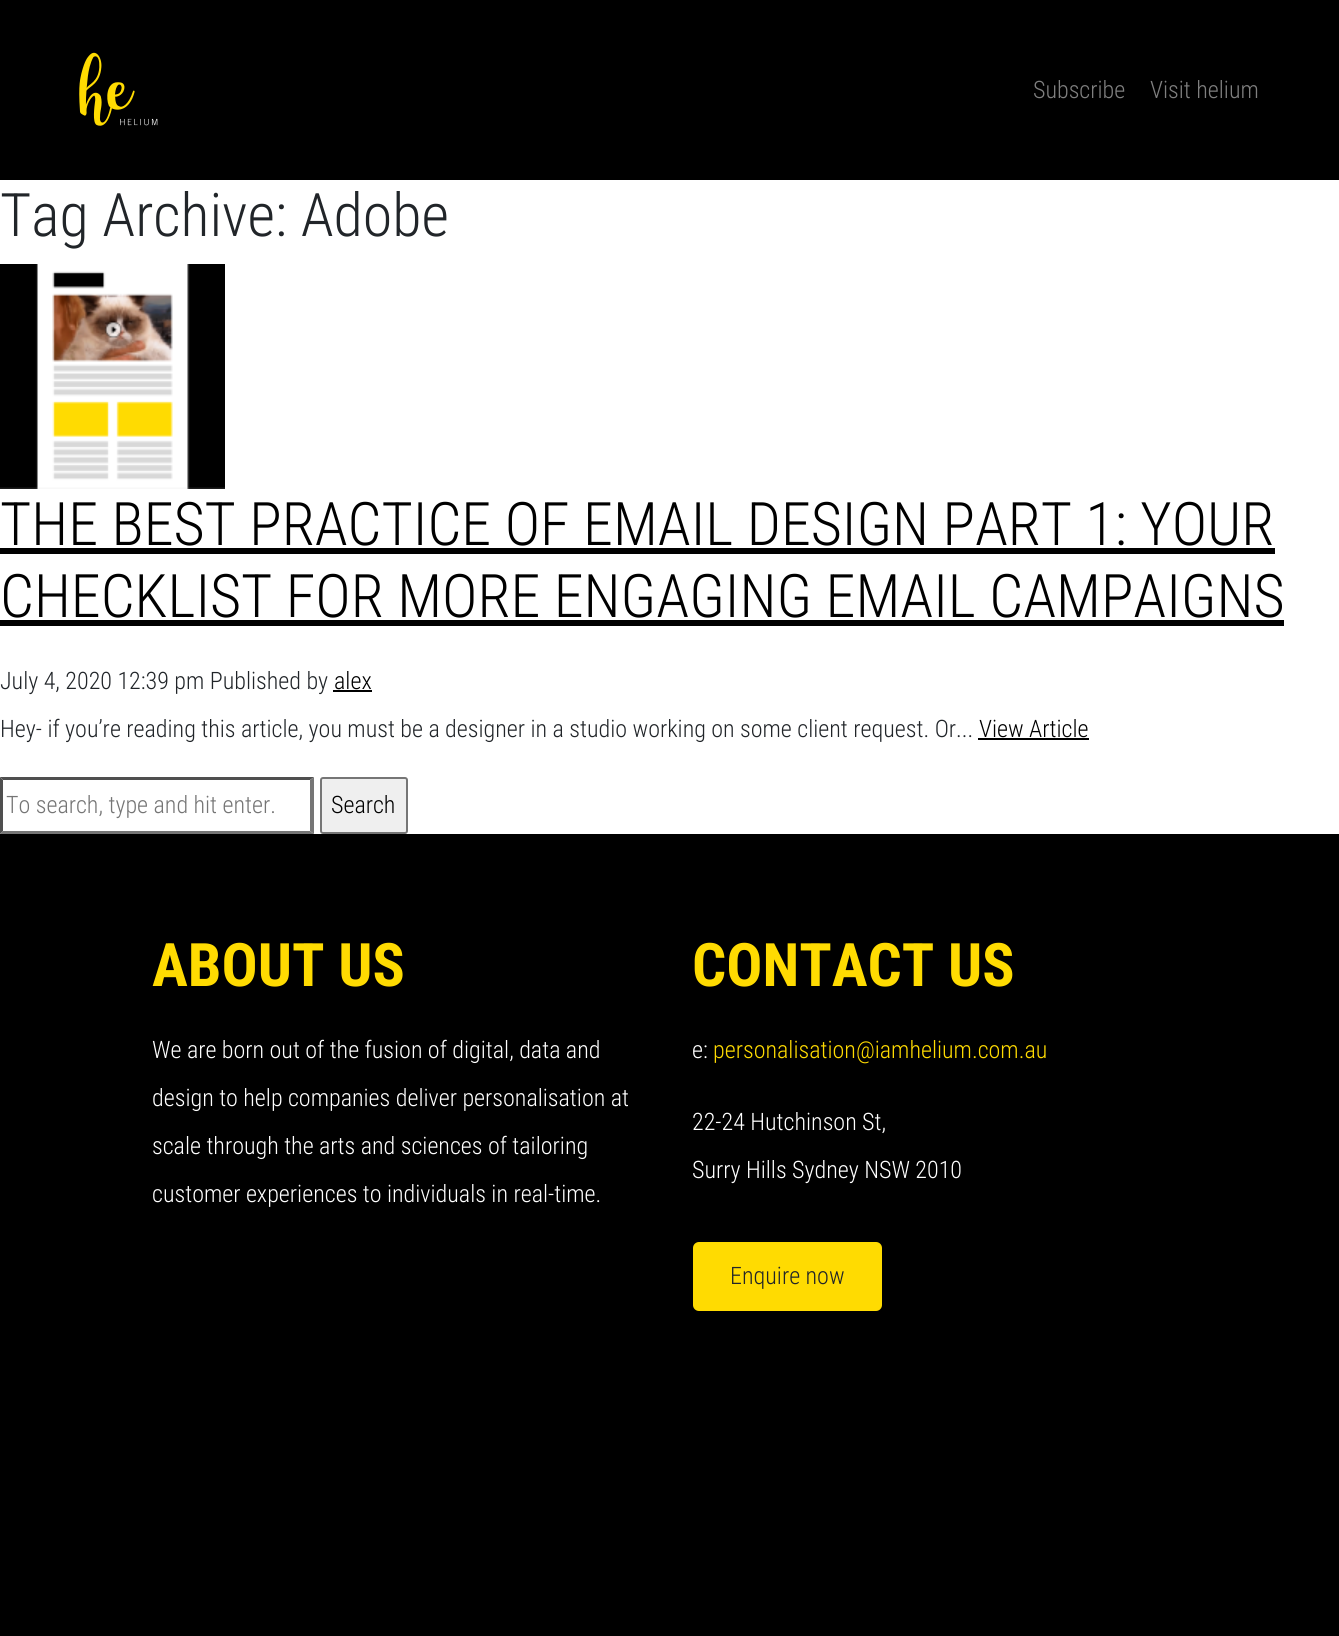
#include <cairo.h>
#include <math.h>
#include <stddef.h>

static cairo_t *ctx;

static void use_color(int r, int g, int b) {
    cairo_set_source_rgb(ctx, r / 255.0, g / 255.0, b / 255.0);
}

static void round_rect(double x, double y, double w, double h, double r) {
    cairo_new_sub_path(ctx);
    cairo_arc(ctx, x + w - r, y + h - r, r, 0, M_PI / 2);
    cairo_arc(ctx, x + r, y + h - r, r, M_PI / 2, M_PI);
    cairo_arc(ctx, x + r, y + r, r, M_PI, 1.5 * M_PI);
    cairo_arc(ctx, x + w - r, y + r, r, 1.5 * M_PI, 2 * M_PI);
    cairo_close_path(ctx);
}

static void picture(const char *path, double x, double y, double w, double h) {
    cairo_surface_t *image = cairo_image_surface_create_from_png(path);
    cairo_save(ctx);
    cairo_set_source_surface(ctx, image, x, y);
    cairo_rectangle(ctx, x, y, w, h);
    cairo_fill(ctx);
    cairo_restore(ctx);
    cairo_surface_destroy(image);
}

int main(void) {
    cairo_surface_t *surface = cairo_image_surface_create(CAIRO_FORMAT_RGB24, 1339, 1636);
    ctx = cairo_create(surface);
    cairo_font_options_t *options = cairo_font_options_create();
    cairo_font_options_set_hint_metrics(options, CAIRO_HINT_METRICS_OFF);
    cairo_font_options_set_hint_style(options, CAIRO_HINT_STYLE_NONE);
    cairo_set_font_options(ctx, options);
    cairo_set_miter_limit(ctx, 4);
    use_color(255, 255, 255);
    cairo_paint(ctx);
    use_color(0, 0, 0);
    cairo_rectangle(ctx, 0, 0, 1339, 180);
    cairo_fill(ctx);
    picture("img1.png", 79, 52, 79, 74);
    cairo_select_font_face(ctx, "Roboto Condensed Light", CAIRO_FONT_SLANT_NORMAL, CAIRO_FONT_WEIGHT_NORMAL);
    cairo_set_font_size(ctx, 24);
    use_color(128, 128, 128);
    cairo_move_to(ctx, 1033, 98);
    cairo_show_text(ctx, "Subscribe");
    cairo_move_to(ctx, 1150, 98);
    cairo_show_text(ctx, "Visit helium");
    cairo_set_font_size(ctx, 60);
    use_color(33, 37, 41);
    cairo_move_to(ctx, 0, 236);
    cairo_show_text(ctx, "Tag Archive: Adobe");
    picture("img2.png", 0, 264, 225, 225);
    use_color(0, 0, 0);
    cairo_move_to(ctx, 0, 545);
    cairo_show_text(ctx, "THE BEST PRACTICE OF EMAIL DESIGN PART 1: YOUR");
    cairo_rectangle(ctx, 0, 548, 1275, 6);
    cairo_fill(ctx);
    cairo_move_to(ctx, 0, 617);
    cairo_show_text(ctx, "CHECKLIST FOR MORE ENGAGING EMAIL CAMPAIGNS");
    cairo_rectangle(ctx, 0, 620, 1284, 6);
    cairo_fill(ctx);
    cairo_set_font_size(ctx, 24);
    use_color(33, 37, 41);
    cairo_move_to(ctx, 0, 689);
    cairo_show_text(ctx, "July 4, 2020 12:39 pm Published by");
    use_color(0, 0, 0);
    cairo_move_to(ctx, 334, 689);
    cairo_show_text(ctx, "alex");
    cairo_rectangle(ctx, 333, 690, 39, 2);
    cairo_fill(ctx);
    use_color(33, 37, 41);
    cairo_move_to(ctx, 0, 737);
    cairo_show_text(ctx, "Hey- if you’re reading this article, you must be a designer in a studio working on some client request. Or...");
    use_color(0, 0, 0);
    cairo_move_to(ctx, 979, 737);
    cairo_show_text(ctx, "View Article");
    cairo_rectangle(ctx, 978, 738, 111, 2);
    cairo_fill(ctx);
    use_color(79, 79, 79);
    cairo_new_path(ctx);
    cairo_move_to(ctx, 0, 777);
    cairo_line_to(ctx, 314, 777);
    cairo_line_to(ctx, 310, 780);
    cairo_line_to(ctx, 3, 780);
    cairo_close_path(ctx);
    cairo_fill(ctx);
    use_color(118, 118, 118);
    cairo_new_path(ctx);
    cairo_move_to(ctx, 314, 777);
    cairo_line_to(ctx, 314, 834);
    cairo_line_to(ctx, 310, 831);
    cairo_line_to(ctx, 310, 780);
    cairo_close_path(ctx);
    cairo_fill(ctx);
    cairo_new_path(ctx);
    cairo_move_to(ctx, 314, 834);
    cairo_line_to(ctx, 0, 834);
    cairo_line_to(ctx, 3, 831);
    cairo_line_to(ctx, 310, 831);
    cairo_close_path(ctx);
    cairo_fill(ctx);
    use_color(79, 79, 79);
    cairo_new_path(ctx);
    cairo_move_to(ctx, 0, 834);
    cairo_line_to(ctx, 0, 777);
    cairo_line_to(ctx, 3, 780);
    cairo_line_to(ctx, 3, 831);
    cairo_close_path(ctx);
    cairo_fill(ctx);
    use_color(117, 117, 117);
    cairo_move_to(ctx, 6, 813);
    cairo_show_text(ctx, "To search, type and hit enter.");
    use_color(239, 239, 239);
    round_rect(321, 778, 86, 55, 2);
    cairo_fill_preserve(ctx);
    use_color(118, 118, 118);
    cairo_stroke(ctx);
    use_color(0, 0, 0);
    cairo_move_to(ctx, 331, 813);
    cairo_show_text(ctx, "Search");
    cairo_rectangle(ctx, 0, 834, 1339, 802);
    cairo_fill(ctx);
    cairo_select_font_face(ctx, "Roboto Condensed", CAIRO_FONT_SLANT_NORMAL, CAIRO_FONT_WEIGHT_BOLD);
    cairo_set_font_size(ctx, 60);
    use_color(255, 219, 1);
    cairo_move_to(ctx, 152, 986);
    cairo_show_text(ctx, "ABOUT US");
    cairo_select_font_face(ctx, "Roboto Condensed Light", CAIRO_FONT_SLANT_NORMAL, CAIRO_FONT_WEIGHT_NORMAL);
    cairo_set_font_size(ctx, 24);
    use_color(255, 255, 255);
    cairo_move_to(ctx, 152, 1058);
    cairo_show_text(ctx, "We are born out of the fusion of digital, data and");
    cairo_move_to(ctx, 152, 1106);
    cairo_show_text(ctx, "design to help companies deliver personalisation at");
    cairo_move_to(ctx, 152, 1154);
    cairo_show_text(ctx, "scale through the arts and sciences of tailoring");
    cairo_move_to(ctx, 152, 1202);
    cairo_show_text(ctx, "customer experiences to individuals in real-time.");
    cairo_select_font_face(ctx, "Roboto Condensed", CAIRO_FONT_SLANT_NORMAL, CAIRO_FONT_WEIGHT_BOLD);
    cairo_set_font_size(ctx, 60);
    use_color(255, 219, 1);
    cairo_move_to(ctx, 692, 986);
    cairo_show_text(ctx, "CONTACT US");
    cairo_select_font_face(ctx, "Roboto Condensed Light", CAIRO_FONT_SLANT_NORMAL, CAIRO_FONT_WEIGHT_NORMAL);
    cairo_set_font_size(ctx, 24);
    use_color(255, 255, 255);
    cairo_move_to(ctx, 692, 1058);
    cairo_show_text(ctx, "e:");
    use_color(255, 219, 1);
    cairo_move_to(ctx, 713, 1058);
    cairo_show_text(ctx, "personalisation@iamhelium.com.au");
    use_color(255, 255, 255);
    cairo_move_to(ctx, 692, 1130);
    cairo_show_text(ctx, "22-24 Hutchinson St,");
    cairo_move_to(ctx, 692, 1178);
    cairo_show_text(ctx, "Surry Hills Sydney NSW 2010");
    use_color(255, 219, 1);
    round_rect(694, 1243, 187, 67, 5);
    cairo_fill_preserve(ctx);
    cairo_stroke(ctx);
    use_color(33, 37, 41);
    cairo_move_to(ctx, 730, 1284);
    cairo_show_text(ctx, "Enquire now");
    cairo_surface_write_to_png(surface, "result.png");
    cairo_font_options_destroy(options);
    cairo_destroy(ctx);
    cairo_surface_destroy(surface);
    return 0;
}
